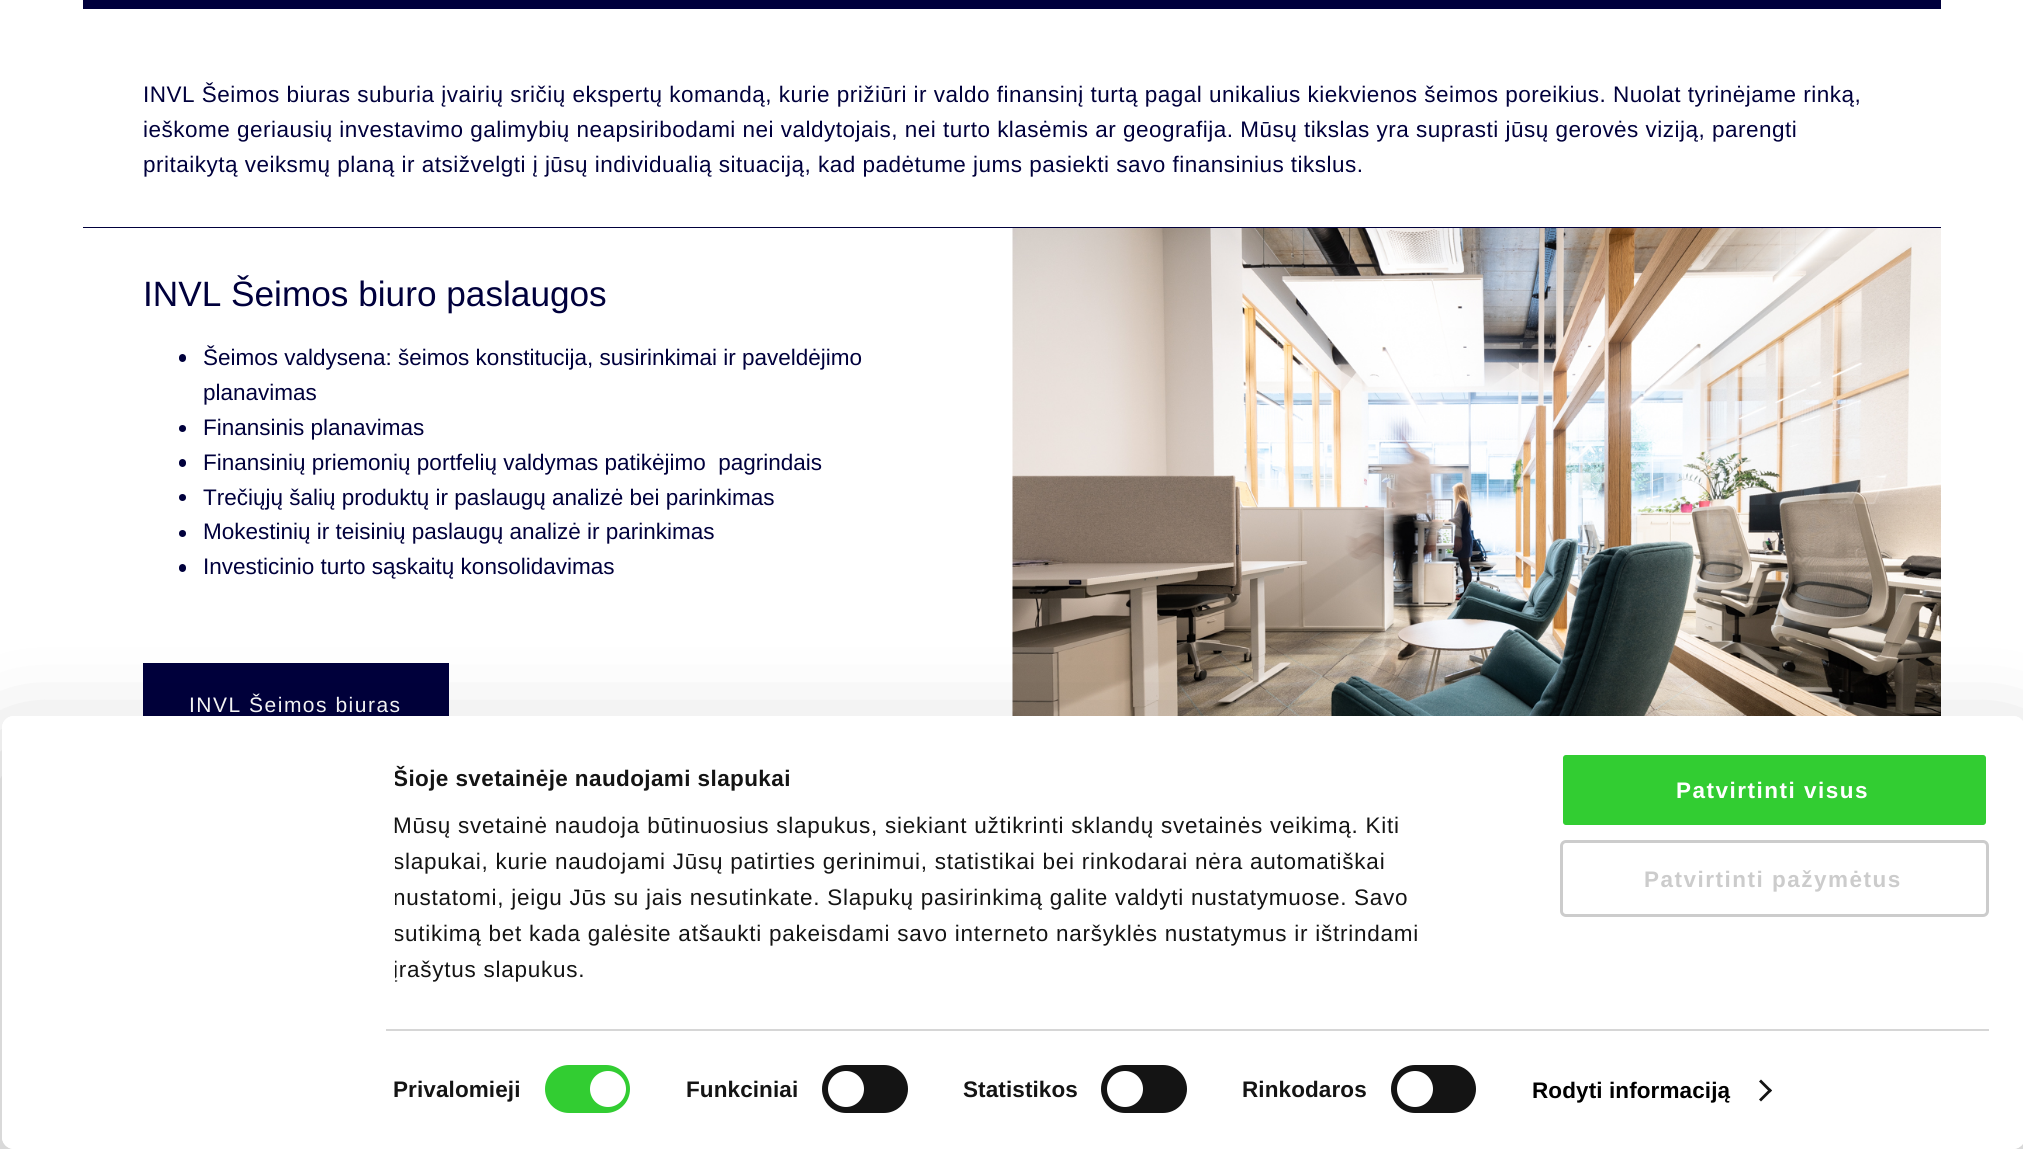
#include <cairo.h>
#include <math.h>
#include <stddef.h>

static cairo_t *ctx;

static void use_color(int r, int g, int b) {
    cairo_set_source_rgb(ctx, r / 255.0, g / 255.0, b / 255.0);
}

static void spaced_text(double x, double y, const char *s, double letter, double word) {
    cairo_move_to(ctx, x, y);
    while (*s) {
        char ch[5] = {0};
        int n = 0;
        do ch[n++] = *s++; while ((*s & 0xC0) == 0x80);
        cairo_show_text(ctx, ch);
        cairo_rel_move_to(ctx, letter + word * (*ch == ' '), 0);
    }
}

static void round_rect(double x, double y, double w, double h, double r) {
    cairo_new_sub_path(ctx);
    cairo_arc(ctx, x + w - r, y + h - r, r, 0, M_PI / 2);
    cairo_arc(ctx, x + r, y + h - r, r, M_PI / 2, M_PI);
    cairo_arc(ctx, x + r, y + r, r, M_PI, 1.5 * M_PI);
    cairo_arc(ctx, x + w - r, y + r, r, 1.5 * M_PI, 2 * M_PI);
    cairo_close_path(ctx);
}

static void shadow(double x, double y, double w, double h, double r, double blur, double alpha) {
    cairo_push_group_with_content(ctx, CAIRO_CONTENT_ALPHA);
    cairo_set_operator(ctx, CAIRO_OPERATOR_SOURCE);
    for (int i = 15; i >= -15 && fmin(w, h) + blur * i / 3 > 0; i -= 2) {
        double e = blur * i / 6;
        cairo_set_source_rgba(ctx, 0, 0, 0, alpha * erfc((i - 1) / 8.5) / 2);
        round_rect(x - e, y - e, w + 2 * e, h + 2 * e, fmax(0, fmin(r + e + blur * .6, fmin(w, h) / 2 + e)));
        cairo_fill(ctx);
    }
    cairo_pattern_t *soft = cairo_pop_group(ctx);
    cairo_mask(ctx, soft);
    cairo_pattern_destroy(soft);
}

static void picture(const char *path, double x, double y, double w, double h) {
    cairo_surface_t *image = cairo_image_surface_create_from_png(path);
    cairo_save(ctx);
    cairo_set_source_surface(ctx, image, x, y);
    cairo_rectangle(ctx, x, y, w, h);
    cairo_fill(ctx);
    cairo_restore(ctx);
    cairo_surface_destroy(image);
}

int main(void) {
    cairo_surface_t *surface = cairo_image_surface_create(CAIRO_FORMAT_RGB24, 2023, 1149);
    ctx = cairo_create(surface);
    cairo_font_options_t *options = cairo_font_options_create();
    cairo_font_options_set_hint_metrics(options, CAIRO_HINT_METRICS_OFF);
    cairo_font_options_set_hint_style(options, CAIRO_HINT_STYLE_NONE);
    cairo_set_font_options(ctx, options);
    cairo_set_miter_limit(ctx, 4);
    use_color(255, 255, 255);
    cairo_paint(ctx);
    use_color(0, 0, 60);
    cairo_rectangle(ctx, 83, 0, 1858, 9);
    cairo_fill(ctx);
    cairo_rectangle(ctx, 83, 227, 1858, 1);
    cairo_fill(ctx);
    cairo_select_font_face(ctx, "Liberation Sans", CAIRO_FONT_SLANT_NORMAL, CAIRO_FONT_WEIGHT_NORMAL);
    cairo_set_font_size(ctx, 22.5);
    spaced_text(143, 102, "INVL Šeimos biuras suburia įvairių sričių ekspertų komandą, kurie prižiūri ir valdo finansinį turtą pagal unikalius kiekvienos šeimos poreikius. Nuolat tyrinėjame rinką,", 0.49, 0);
    spaced_text(143, 137, "ieškome geriausių investavimo galimybių neapsiribodami nei valdytojais, nei turto klasėmis ar geografija. Mūsų tikslas yra suprasti jūsų gerovės viziją, parengti", 0.49, 0);
    spaced_text(143, 172, "pritaikytą veiksmų planą ir atsižvelgti į jūsų individualią situaciją, kad padėtume jums pasiekti savo finansinius tikslus.", 0.49, 0);
    cairo_set_font_size(ctx, 35.2);
    cairo_move_to(ctx, 143, 306);
    cairo_show_text(ctx, "INVL Šeimos biuro paslaugos");
    round_rect(179, 354, 7, 8, 3.5);
    cairo_fill(ctx);
    cairo_set_font_size(ctx, 22.5);
    cairo_move_to(ctx, 203, 365);
    cairo_show_text(ctx, "Šeimos valdysena: šeimos konstitucija, susirinkimai ir paveldėjimo");
    cairo_move_to(ctx, 203, 400);
    cairo_show_text(ctx, "planavimas");
    cairo_new_path(ctx);
    cairo_arc(ctx, 182.5, 428.5, 3.5, 0, 2 * M_PI);
    cairo_fill(ctx);
    cairo_move_to(ctx, 203, 435);
    cairo_show_text(ctx, "Finansinis planavimas");
    round_rect(179, 459, 7, 8, 3.5);
    cairo_fill(ctx);
    cairo_move_to(ctx, 203, 470);
    cairo_show_text(ctx, "Finansinių priemonių portfelių valdymas patikėjimo  pagrindais");
    cairo_new_path(ctx);
    cairo_arc(ctx, 182.5, 497.5, 3.5, 0, 2 * M_PI);
    cairo_fill(ctx);
    cairo_move_to(ctx, 203, 505);
    cairo_show_text(ctx, "Trečiųjų šalių produktų ir paslaugų analizė bei parinkimas");
    cairo_new_path(ctx);
    cairo_arc(ctx, 182.5, 533.5, 3.5, 0, 2 * M_PI);
    cairo_fill(ctx);
    cairo_move_to(ctx, 203, 539);
    cairo_show_text(ctx, "Mokestinių ir teisinių paslaugų analizė ir parinkimas");
    round_rect(179, 564, 7, 8, 3.5);
    cairo_fill(ctx);
    cairo_move_to(ctx, 203, 574);
    cairo_show_text(ctx, "Investicinio turto sąskaitų konsolidavimas");
    cairo_rectangle(ctx, 143, 663, 306, 53);
    cairo_fill(ctx);
    cairo_set_font_size(ctx, 21);
    use_color(255, 255, 255);
    spaced_text(189, 712, "INVL Šeimos biuras", 1.5, 0);
    picture("img1.png", 1012, 228, 929, 488);
    cairo_save(ctx);
    cairo_set_fill_rule(ctx, CAIRO_FILL_RULE_EVEN_ODD);
    cairo_new_path(ctx);
    cairo_move_to(ctx, 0, 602);
    cairo_line_to(ctx, 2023, 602);
    cairo_line_to(ctx, 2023, 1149);
    cairo_line_to(ctx, 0, 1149);
    cairo_close_path(ctx);
    cairo_move_to(ctx, 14, 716);
    cairo_line_to(ctx, 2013, 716);
    cairo_curve_to(ctx, 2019.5, 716, 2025, 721.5, 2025, 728);
    cairo_line_to(ctx, 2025, 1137);
    cairo_curve_to(ctx, 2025, 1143.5, 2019.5, 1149, 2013, 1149);
    cairo_line_to(ctx, 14, 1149);
    cairo_curve_to(ctx, 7.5, 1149, 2, 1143.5, 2, 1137);
    cairo_line_to(ctx, 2, 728);
    cairo_curve_to(ctx, 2, 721.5, 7.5, 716, 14, 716);
    cairo_close_path(ctx);
    cairo_clip(ctx);
    use_color(0, 0, 0);
    shadow(2, 761, 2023, 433, 12, 52.5, 0.3);
    cairo_restore(ctx);
    round_rect(2, 716, 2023, 433, 12);
    cairo_fill(ctx);
    cairo_save(ctx);
    cairo_rectangle(ctx, 395, 761, 1122, 226);
    cairo_clip(ctx);
    cairo_select_font_face(ctx, "Liberation Sans", CAIRO_FONT_SLANT_NORMAL, CAIRO_FONT_WEIGHT_BOLD);
    cairo_set_font_size(ctx, 22.5);
    use_color(20, 20, 20);
    spaced_text(393, 786, "Šioje svetainėje naudojami slapukai", 0.4, 0);
    cairo_restore(ctx);
    cairo_set_font_size(ctx, 22.5);
    use_color(20, 20, 20);
    spaced_text(393, 833, "Mūsų svetainė naudoja būtinuosius slapukus, siekiant užtikrinti sklandų svetainės veikimą. Kiti", 0.75, 0);
    cairo_save(ctx);
    cairo_rectangle(ctx, 395, 761, 1122, 226);
    cairo_clip(ctx);
    spaced_text(393, 869, "slapukai, kurie naudojami Jūsų patirties gerinimui, statistikai bei rinkodarai nėra automatiškai", 0.75, 0);
    spaced_text(393, 905, "nustatomi, jeigu Jūs su jais nesutinkate. Slapukų pasirinkimą galite valdyti nustatymuose.", 0.75, 0);
    cairo_restore(ctx);
    spaced_text(1354, 905, "Savo", 0.75, 0);
    cairo_save(ctx);
    cairo_rectangle(ctx, 395, 761, 1122, 226);
    cairo_clip(ctx);
    spaced_text(393, 941, "sutikimą bet kada galėsite atšaukti pakeisdami savo interneto naršyklės nustatymus ir ištrindami", 0.75, 0);
    spaced_text(393, 977, "įrašytus slapukus.", 0.75, 0);
    cairo_restore(ctx);
    use_color(214, 214, 214);
    cairo_rectangle(ctx, 386, 1029, 1603, 2);
    cairo_fill(ctx);
    cairo_select_font_face(ctx, "Liberation Sans", CAIRO_FONT_SLANT_NORMAL, CAIRO_FONT_WEIGHT_BOLD);
    use_color(20, 20, 20);
    spaced_text(393, 1097, "Privalomieji", 0.1, 0);
    use_color(50, 205, 50);
    round_rect(545, 1065, 85, 48, 24);
    cairo_fill(ctx);
    use_color(255, 255, 255);
    cairo_arc(ctx, 608, 1089, 18, 0, 2 * M_PI);
    cairo_fill(ctx);
    use_color(20, 20, 20);
    spaced_text(686, 1097, "Funkciniai", 0.1, 0);
    round_rect(822, 1065, 86, 48, 24);
    cairo_fill(ctx);
    use_color(255, 255, 255);
    cairo_arc(ctx, 846, 1089, 18, 0, 2 * M_PI);
    cairo_fill(ctx);
    use_color(20, 20, 20);
    spaced_text(963, 1097, "Statistikos", 0.1, 0);
    round_rect(1101, 1065, 86, 48, 24);
    cairo_fill(ctx);
    use_color(255, 255, 255);
    cairo_arc(ctx, 1125, 1089, 18, 0, 2 * M_PI);
    cairo_fill(ctx);
    use_color(20, 20, 20);
    spaced_text(1242, 1097, "Rinkodaros", 0.1, 0);
    round_rect(1391, 1065, 85, 48, 24);
    cairo_fill(ctx);
    use_color(255, 255, 255);
    cairo_arc(ctx, 1415, 1089, 18, 0, 2 * M_PI);
    cairo_fill(ctx);
    use_color(0, 0, 0);
    spaced_text(1532, 1098, "Rodyti informaciją", 0.1, 0);
    use_color(20, 20, 20);
    cairo_new_path(ctx);
    cairo_move_to(ctx, 1761, 1079.5);
    cairo_line_to(ctx, 1772, 1090.5);
    cairo_line_to(ctx, 1770, 1092.5);
    cairo_line_to(ctx, 1759, 1081.5);
    cairo_close_path(ctx);
    cairo_fill(ctx);
    cairo_new_path(ctx);
    cairo_move_to(ctx, 1770, 1088.5);
    cairo_line_to(ctx, 1772, 1090.5);
    cairo_line_to(ctx, 1761, 1101.5);
    cairo_line_to(ctx, 1759, 1099.5);
    cairo_close_path(ctx);
    cairo_fill(ctx);
    use_color(50, 205, 50);
    round_rect(1561.5, 753.5, 426, 73, 4.5);
    cairo_fill_preserve(ctx);
    use_color(255, 255, 255);
    cairo_set_line_width(ctx, 3);
    cairo_stroke(ctx);
    spaced_text(1676, 798, "Patvirtinti visus", 1.5, 0);
    round_rect(1561.5, 841.5, 426, 74, 4.5);
    use_color(204, 204, 204);
    cairo_stroke(ctx);
    spaced_text(1644, 887, "Patvirtinti pažymėtus", 1.5, 0);
    cairo_surface_write_to_png(surface, "result.png");
    cairo_font_options_destroy(options);
    cairo_destroy(ctx);
    cairo_surface_destroy(surface);
    return 0;
}
